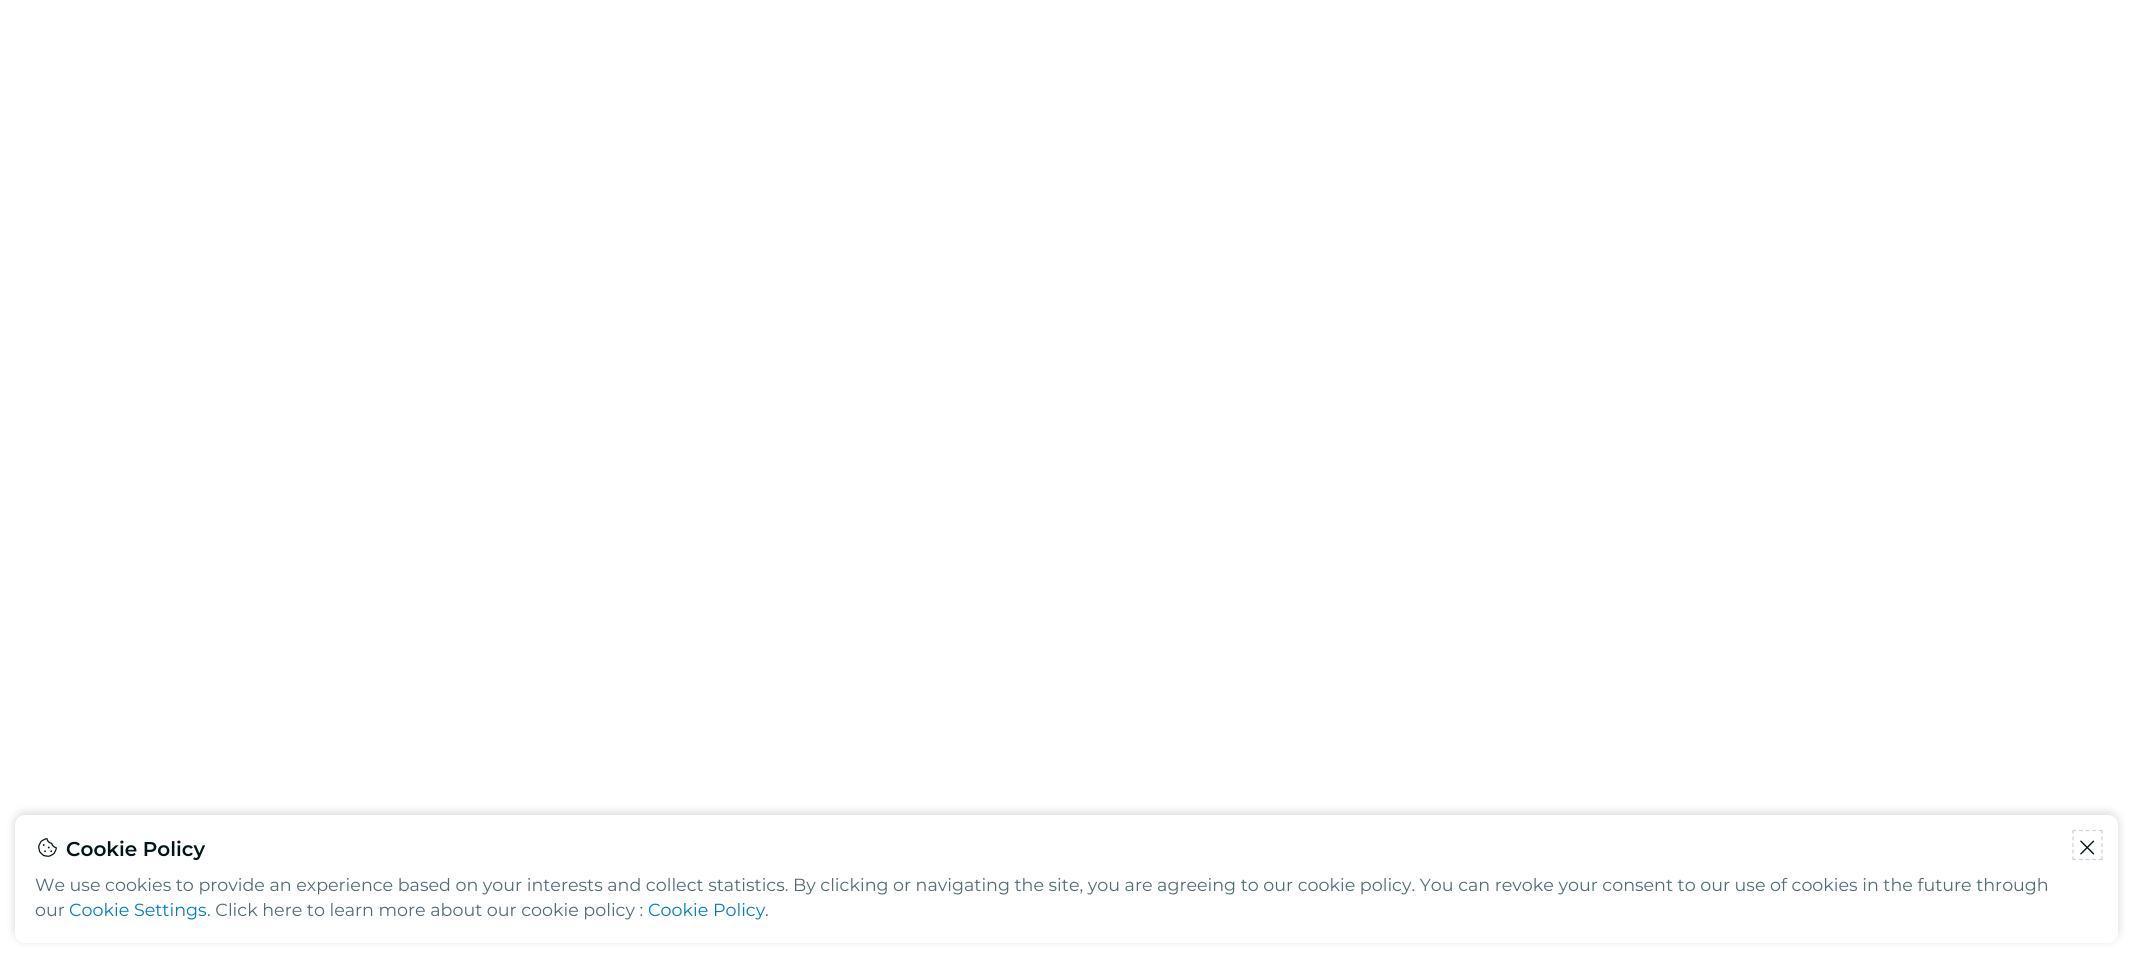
#include <cairo.h>
#include <math.h>
#include <stddef.h>

static cairo_t *ctx;

static void use_color(int r, int g, int b) {
    cairo_set_source_rgb(ctx, r / 255.0, g / 255.0, b / 255.0);
}

static void round_rect(double x, double y, double w, double h, double r) {
    cairo_new_sub_path(ctx);
    cairo_arc(ctx, x + w - r, y + h - r, r, 0, M_PI / 2);
    cairo_arc(ctx, x + r, y + h - r, r, M_PI / 2, M_PI);
    cairo_arc(ctx, x + r, y + r, r, M_PI, 1.5 * M_PI);
    cairo_arc(ctx, x + w - r, y + r, r, 1.5 * M_PI, 2 * M_PI);
    cairo_close_path(ctx);
}

static void shadow(double x, double y, double w, double h, double r, double blur, double alpha) {
    cairo_push_group_with_content(ctx, CAIRO_CONTENT_ALPHA);
    cairo_set_operator(ctx, CAIRO_OPERATOR_SOURCE);
    for (int i = 15; i >= -15 && fmin(w, h) + blur * i / 3 > 0; i -= 2) {
        double e = blur * i / 6;
        cairo_set_source_rgba(ctx, 0, 0, 0, alpha * erfc((i - 1) / 8.5) / 2);
        round_rect(x - e, y - e, w + 2 * e, h + 2 * e, fmax(0, fmin(r + e + blur * .6, fmin(w, h) / 2 + e)));
        cairo_fill(ctx);
    }
    cairo_pattern_t *soft = cairo_pop_group(ctx);
    cairo_mask(ctx, soft);
    cairo_pattern_destroy(soft);
}

static void picture(const char *path, double x, double y, double w, double h) {
    cairo_surface_t *image = cairo_image_surface_create_from_png(path);
    cairo_save(ctx);
    cairo_set_source_surface(ctx, image, x, y);
    cairo_rectangle(ctx, x, y, w, h);
    cairo_fill(ctx);
    cairo_restore(ctx);
    cairo_surface_destroy(image);
}

int main(void) {
    cairo_surface_t *surface = cairo_image_surface_create(CAIRO_FORMAT_RGB24, 2132, 957);
    ctx = cairo_create(surface);
    cairo_font_options_t *options = cairo_font_options_create();
    cairo_font_options_set_hint_metrics(options, CAIRO_HINT_METRICS_OFF);
    cairo_font_options_set_hint_style(options, CAIRO_HINT_STYLE_NONE);
    cairo_set_font_options(ctx, options);
    cairo_set_miter_limit(ctx, 4);
    use_color(255, 255, 255);
    cairo_paint(ctx);
    use_color(0, 0, 0);
    shadow(15, 813, 2103, 127, 10, 5, 0.16);
    use_color(255, 255, 255);
    round_rect(15, 815, 2103, 128, 10);
    cairo_fill(ctx);
    picture("img1.png", 38, 838, 19, 19);
    cairo_select_font_face(ctx, "Montserrat SemiBold", CAIRO_FONT_SLANT_NORMAL, CAIRO_FONT_WEIGHT_NORMAL);
    cairo_set_font_size(ctx, 20);
    use_color(3, 20, 25);
    cairo_move_to(ctx, 66, 856);
    cairo_show_text(ctx, "Cookie Policy");
    cairo_select_font_face(ctx, "Montserrat", CAIRO_FONT_SLANT_NORMAL, CAIRO_FONT_WEIGHT_NORMAL);
    cairo_set_font_size(ctx, 17.5);
    use_color(83, 107, 117);
    cairo_move_to(ctx, 35, 891);
    cairo_show_text(ctx, "We use cookies to provide an experience based on your interests and collect statistics. By clicking or navigating the site, you are agreeing to our cookie policy. You can revoke your consent to our use of cookies in the future through");
    cairo_move_to(ctx, 35, 916);
    cairo_show_text(ctx, "our");
    use_color(0, 121, 202);
    cairo_move_to(ctx, 69, 916);
    cairo_show_text(ctx, "Cookie Settings");
    use_color(83, 107, 117);
    cairo_move_to(ctx, 207, 916);
    cairo_show_text(ctx, ". Click here to learn more about our cookie policy :");
    use_color(0, 121, 202);
    cairo_move_to(ctx, 648, 916);
    cairo_show_text(ctx, "Cookie Policy");
    use_color(83, 107, 117);
    cairo_move_to(ctx, 765, 916);
    cairo_show_text(ctx, ".");
    cairo_new_path(ctx);
    cairo_move_to(ctx, 2072.5, 830.5);
    cairo_line_to(ctx, 2102.5, 830.5);
    cairo_move_to(ctx, 2102, 830);
    cairo_line_to(ctx, 2102, 860);
    cairo_move_to(ctx, 2072.5, 859.5);
    cairo_line_to(ctx, 2102.5, 859.5);
    cairo_move_to(ctx, 2073, 830);
    cairo_line_to(ctx, 2073, 860);
    use_color(204, 210, 216);
    cairo_set_line_width(ctx, 1.2);
    cairo_set_dash(ctx, (double[]){3.75, 2.81}, 2, 0);
    cairo_stroke(ctx);
    picture("img2.png", 2080, 840, 15, 15);
    cairo_surface_write_to_png(surface, "result.png");
    cairo_font_options_destroy(options);
    cairo_destroy(ctx);
    cairo_surface_destroy(surface);
    return 0;
}
